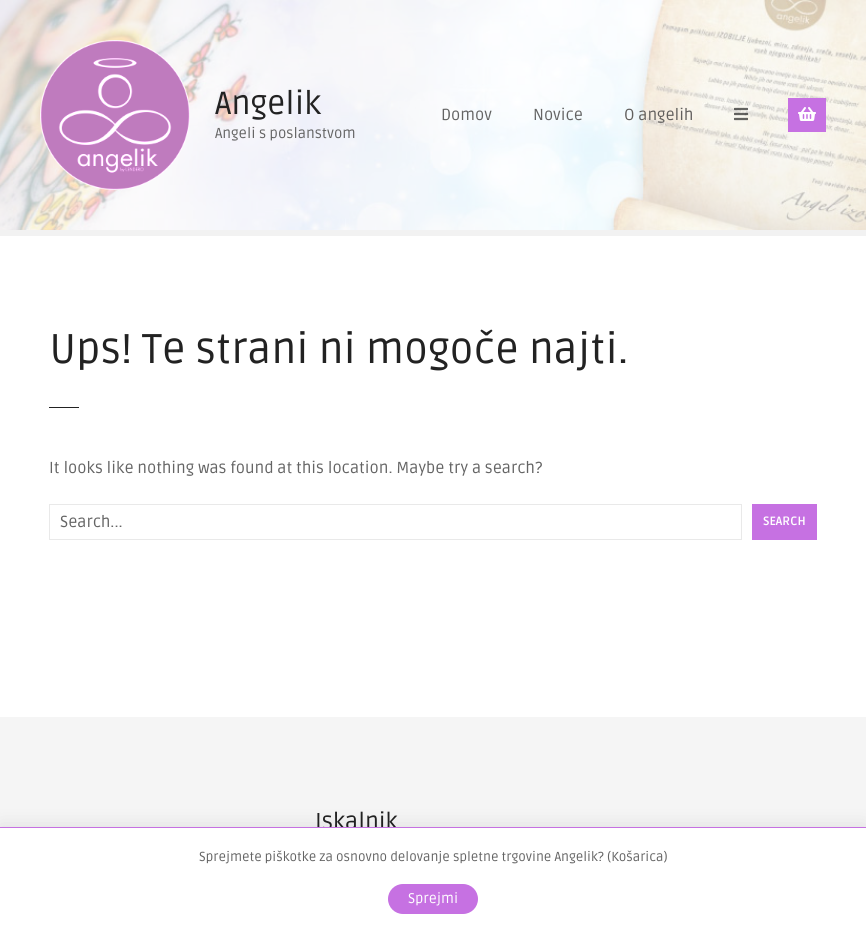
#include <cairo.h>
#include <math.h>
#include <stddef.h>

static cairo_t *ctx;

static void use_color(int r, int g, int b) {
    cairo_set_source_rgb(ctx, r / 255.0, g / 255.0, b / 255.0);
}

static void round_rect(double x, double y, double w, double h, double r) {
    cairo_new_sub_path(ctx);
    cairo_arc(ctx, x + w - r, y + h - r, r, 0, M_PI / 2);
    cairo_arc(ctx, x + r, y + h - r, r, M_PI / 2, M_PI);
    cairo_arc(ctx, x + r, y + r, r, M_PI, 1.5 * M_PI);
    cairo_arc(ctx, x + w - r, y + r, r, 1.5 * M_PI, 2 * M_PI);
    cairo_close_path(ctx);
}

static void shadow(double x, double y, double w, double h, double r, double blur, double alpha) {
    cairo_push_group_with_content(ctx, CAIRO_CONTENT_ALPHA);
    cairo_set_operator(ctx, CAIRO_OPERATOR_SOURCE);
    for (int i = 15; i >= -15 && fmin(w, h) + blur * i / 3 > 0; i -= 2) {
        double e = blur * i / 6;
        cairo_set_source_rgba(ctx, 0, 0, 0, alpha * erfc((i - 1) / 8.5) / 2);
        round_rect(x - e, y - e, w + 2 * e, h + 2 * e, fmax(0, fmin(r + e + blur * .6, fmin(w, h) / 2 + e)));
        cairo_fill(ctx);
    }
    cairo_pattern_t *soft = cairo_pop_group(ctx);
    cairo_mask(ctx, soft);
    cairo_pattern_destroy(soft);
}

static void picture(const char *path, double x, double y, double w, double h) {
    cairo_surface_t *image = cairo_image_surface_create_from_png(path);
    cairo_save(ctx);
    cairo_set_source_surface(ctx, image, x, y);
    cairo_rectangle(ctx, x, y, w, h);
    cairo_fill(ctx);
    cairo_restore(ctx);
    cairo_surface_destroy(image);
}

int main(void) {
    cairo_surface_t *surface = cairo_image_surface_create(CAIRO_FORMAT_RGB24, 866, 934);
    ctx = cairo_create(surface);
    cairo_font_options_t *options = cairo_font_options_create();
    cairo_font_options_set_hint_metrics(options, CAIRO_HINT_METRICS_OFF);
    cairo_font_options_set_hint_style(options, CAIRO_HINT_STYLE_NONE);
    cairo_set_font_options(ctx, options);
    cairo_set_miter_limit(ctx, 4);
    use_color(255, 255, 255);
    cairo_paint(ctx);
    picture("img1.png", 0, 0, 866, 230);
    picture("img2.png", 40, 40, 150, 150);
    cairo_select_font_face(ctx, "Ruda", CAIRO_FONT_SLANT_NORMAL, CAIRO_FONT_WEIGHT_NORMAL);
    cairo_set_font_size(ctx, 32);
    use_color(34, 34, 34);
    cairo_move_to(ctx, 215, 114);
    cairo_show_text(ctx, "Angelik");
    cairo_set_font_size(ctx, 14.5);
    use_color(100, 100, 100);
    cairo_move_to(ctx, 215, 138);
    cairo_show_text(ctx, "Angeli s poslanstvom");
    cairo_set_font_size(ctx, 16);
    cairo_move_to(ctx, 441, 120);
    cairo_show_text(ctx, "Domov");
    cairo_move_to(ctx, 533, 120);
    cairo_show_text(ctx, "Novice");
    use_color(97, 95, 93);
    cairo_move_to(ctx, 624, 120);
    cairo_show_text(ctx, "O angelih");
    picture("img3.png", 734, 107, 14, 14);
    use_color(198, 113, 226);
    cairo_rectangle(ctx, 788, 98, 38, 34);
    cairo_fill(ctx);
    picture("img4.png", 798, 107, 18, 14);
    use_color(242, 242, 242);
    cairo_rectangle(ctx, 0, 230, 866, 6);
    cairo_fill(ctx);
    cairo_set_font_size(ctx, 41.6);
    use_color(34, 34, 34);
    cairo_move_to(ctx, 49, 363);
    cairo_show_text(ctx, "Ups! Te strani ni mogoče najti.");
    cairo_rectangle(ctx, 49, 407, 30, 1);
    cairo_fill(ctx);
    cairo_set_font_size(ctx, 16);
    use_color(100, 100, 100);
    cairo_move_to(ctx, 49, 473);
    cairo_show_text(ctx, "It looks like nothing was found at this location. Maybe try a search?");
    cairo_rectangle(ctx, 49.5, 504.5, 692, 35);
    use_color(233, 233, 233);
    cairo_set_line_width(ctx, 1);
    cairo_stroke(ctx);
    use_color(100, 100, 100);
    cairo_move_to(ctx, 60, 527);
    cairo_show_text(ctx, "Search...");
    use_color(198, 113, 226);
    cairo_rectangle(ctx, 752, 504, 65, 36);
    cairo_fill(ctx);
    cairo_select_font_face(ctx, "Ruda", CAIRO_FONT_SLANT_NORMAL, CAIRO_FONT_WEIGHT_BOLD);
    cairo_set_font_size(ctx, 12);
    use_color(255, 255, 255);
    cairo_move_to(ctx, 763, 525);
    cairo_show_text(ctx, "SEARCH");
    use_color(245, 245, 245);
    cairo_rectangle(ctx, 0, 717, 866, 110);
    cairo_fill(ctx);
    cairo_select_font_face(ctx, "Ruda", CAIRO_FONT_SLANT_NORMAL, CAIRO_FONT_WEIGHT_NORMAL);
    cairo_set_font_size(ctx, 23);
    use_color(34, 34, 34);
    cairo_move_to(ctx, 315, 829);
    cairo_show_text(ctx, "Iskalnik");
    use_color(0, 0, 0);
    shadow(0, 827, 866, 107, 0, 10, 0.1);
    use_color(255, 255, 255);
    cairo_rectangle(ctx, 0, 828, 866, 106);
    cairo_fill(ctx);
    use_color(198, 113, 226);
    cairo_rectangle(ctx, 0, 827, 866, 1);
    cairo_fill(ctx);
    cairo_set_font_size(ctx, 13.1);
    use_color(100, 100, 100);
    cairo_move_to(ctx, 199, 861);
    cairo_show_text(ctx, "Sprejmete piškotke za osnovno delovanje spletne trgovine Angelik? (Košarica)");
    use_color(198, 113, 226);
    round_rect(388, 884, 90, 30, 15);
    cairo_fill(ctx);
    cairo_set_font_size(ctx, 14);
    use_color(255, 255, 255);
    cairo_move_to(ctx, 408, 903);
    cairo_show_text(ctx, "Sprejmi");
    cairo_surface_write_to_png(surface, "result.png");
    cairo_font_options_destroy(options);
    cairo_destroy(ctx);
    cairo_surface_destroy(surface);
    return 0;
}
